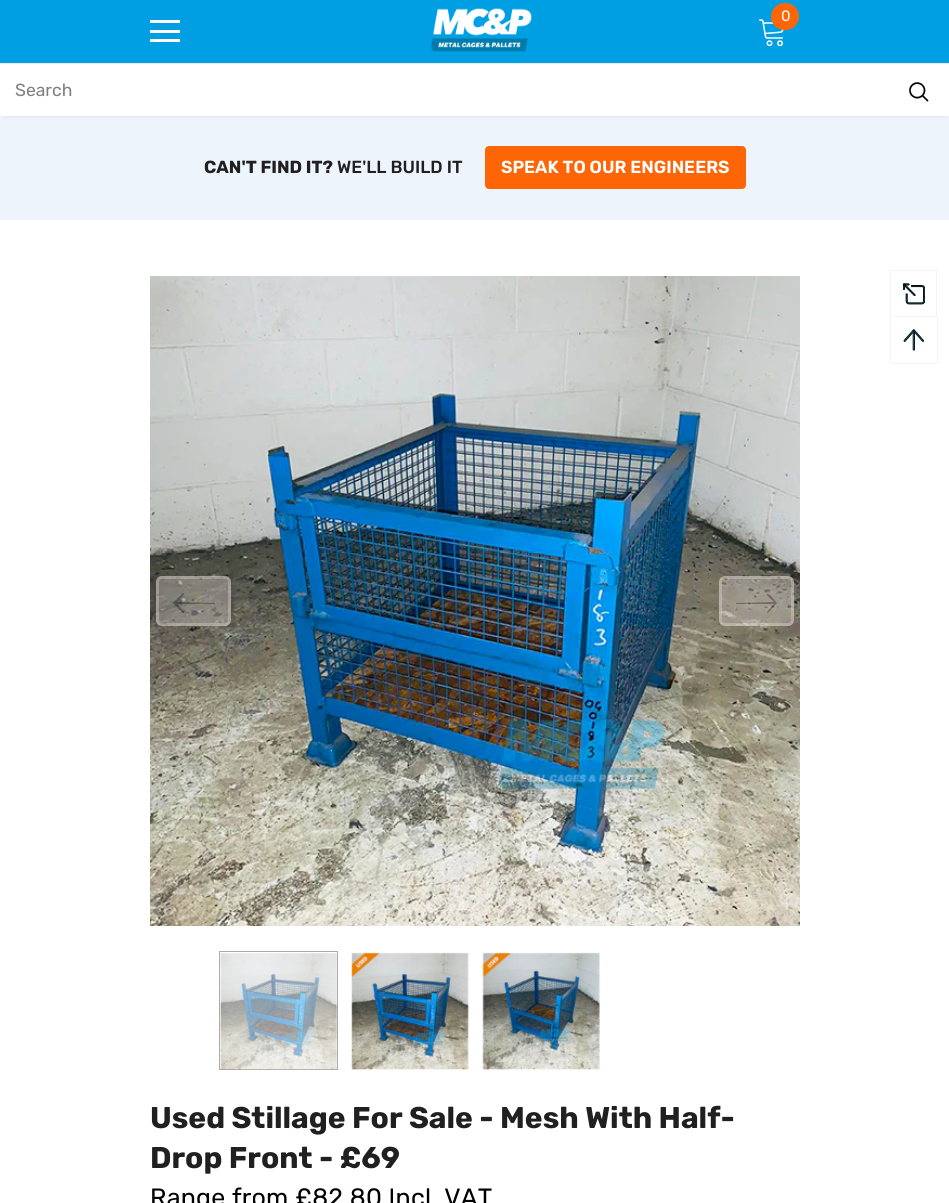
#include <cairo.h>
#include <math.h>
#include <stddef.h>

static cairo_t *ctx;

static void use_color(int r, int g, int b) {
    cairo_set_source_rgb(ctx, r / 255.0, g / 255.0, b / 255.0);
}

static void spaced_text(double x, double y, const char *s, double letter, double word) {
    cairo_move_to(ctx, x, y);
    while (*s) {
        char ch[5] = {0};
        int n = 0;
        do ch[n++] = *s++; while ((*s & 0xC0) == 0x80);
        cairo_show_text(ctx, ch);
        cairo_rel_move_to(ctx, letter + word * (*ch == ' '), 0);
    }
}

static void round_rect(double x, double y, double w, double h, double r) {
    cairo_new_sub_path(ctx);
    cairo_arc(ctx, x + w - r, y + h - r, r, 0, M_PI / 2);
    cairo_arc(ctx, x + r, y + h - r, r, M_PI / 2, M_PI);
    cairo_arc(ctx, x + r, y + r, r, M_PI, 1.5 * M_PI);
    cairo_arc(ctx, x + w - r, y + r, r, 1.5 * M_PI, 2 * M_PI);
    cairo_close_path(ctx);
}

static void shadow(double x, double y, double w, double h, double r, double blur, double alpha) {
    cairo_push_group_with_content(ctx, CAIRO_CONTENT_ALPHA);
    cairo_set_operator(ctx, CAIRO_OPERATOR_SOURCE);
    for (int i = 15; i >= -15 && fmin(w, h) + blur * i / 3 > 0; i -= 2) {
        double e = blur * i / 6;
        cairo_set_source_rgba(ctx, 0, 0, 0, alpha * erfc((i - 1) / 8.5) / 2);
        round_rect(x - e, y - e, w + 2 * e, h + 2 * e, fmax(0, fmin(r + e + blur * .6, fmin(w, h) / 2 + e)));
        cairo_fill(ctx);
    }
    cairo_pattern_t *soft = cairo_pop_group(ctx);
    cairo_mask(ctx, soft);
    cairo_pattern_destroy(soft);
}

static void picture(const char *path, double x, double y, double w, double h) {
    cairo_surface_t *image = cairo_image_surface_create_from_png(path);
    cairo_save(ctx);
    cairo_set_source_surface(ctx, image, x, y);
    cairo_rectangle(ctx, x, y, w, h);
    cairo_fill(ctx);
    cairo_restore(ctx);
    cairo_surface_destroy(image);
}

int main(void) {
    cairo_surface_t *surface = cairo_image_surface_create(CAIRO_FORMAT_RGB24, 949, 1203);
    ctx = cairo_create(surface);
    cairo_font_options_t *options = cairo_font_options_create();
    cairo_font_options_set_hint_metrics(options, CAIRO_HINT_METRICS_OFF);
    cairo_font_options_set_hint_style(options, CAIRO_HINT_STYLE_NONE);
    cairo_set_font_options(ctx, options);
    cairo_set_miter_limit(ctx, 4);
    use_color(255, 255, 255);
    cairo_paint(ctx);
    use_color(0, 159, 227);
    cairo_rectangle(ctx, 0, 0, 949, 63);
    cairo_fill(ctx);
    picture("img1.png", 431, 8, 101, 44);
    picture("img2.png", 759, 19, 25, 27);
    use_color(253, 101, 6);
    round_rect(771, 3, 28, 27, 13.5);
    cairo_fill(ctx);
    cairo_select_font_face(ctx, "Rubik", CAIRO_FONT_SLANT_NORMAL, CAIRO_FONT_WEIGHT_NORMAL);
    cairo_set_font_size(ctx, 15);
    use_color(255, 255, 255);
    cairo_move_to(ctx, 781, 21);
    cairo_show_text(ctx, "0");
    use_color(237, 244, 252);
    cairo_rectangle(ctx, 0, 116, 949, 104);
    cairo_fill(ctx);
    use_color(0, 0, 0);
    shadow(4, 70, 942, 46, 0, 2, 0.12);
    use_color(255, 255, 255);
    cairo_rectangle(ctx, 1, 67, 948, 49);
    cairo_fill(ctx);
    use_color(234, 234, 234);
    cairo_rectangle(ctx, 0, 63, 949, 1);
    cairo_fill(ctx);
    cairo_set_font_size(ctx, 17.5);
    use_color(128, 128, 128);
    cairo_move_to(ctx, 15, 96);
    cairo_show_text(ctx, "Search");
    picture("img3.png", 909, 82, 20, 20);
    use_color(255, 255, 255);
    cairo_rectangle(ctx, 150, 20, 30, 3);
    cairo_fill(ctx);
    cairo_rectangle(ctx, 150, 30, 30, 3);
    cairo_fill(ctx);
    cairo_rectangle(ctx, 150, 39, 30, 3);
    cairo_fill(ctx);
    cairo_select_font_face(ctx, "Rubik", CAIRO_FONT_SLANT_NORMAL, CAIRO_FONT_WEIGHT_BOLD);
    use_color(32, 32, 32);
    cairo_move_to(ctx, 204, 173);
    cairo_show_text(ctx, "CAN'T FIND IT?");
    cairo_select_font_face(ctx, "Rubik Medium", CAIRO_FONT_SLANT_NORMAL, CAIRO_FONT_WEIGHT_NORMAL);
    cairo_move_to(ctx, 337, 173);
    cairo_show_text(ctx, "WE'LL BUILD IT");
    use_color(253, 101, 6);
    round_rect(487, 148, 257, 39, 2);
    cairo_fill_preserve(ctx);
    cairo_set_line_width(ctx, 4);
    cairo_stroke(ctx);
    cairo_select_font_face(ctx, "Rubik SemiBold", CAIRO_FONT_SLANT_NORMAL, CAIRO_FONT_WEIGHT_NORMAL);
    use_color(255, 255, 255);
    cairo_move_to(ctx, 501, 173);
    cairo_show_text(ctx, "SPEAK TO OUR ENGINEERS");
    picture("img4.png", 150, 276, 650, 650);
    cairo_set_source_rgba(ctx, 0.949, 0.902, 0.886, 0.3);
    round_rect(156, 576, 75, 50, 6);
    cairo_fill(ctx);
    round_rect(157.5, 577.5, 72, 47, 4.5);
    cairo_set_line_width(ctx, 3);
    cairo_stroke(ctx);
    cairo_set_source_rgba(ctx, 0, 0, 0, 0.3);
    cairo_new_path(ctx);
    cairo_move_to(ctx, 183, 593);
    cairo_line_to(ctx, 173, 603);
    cairo_curve_to(ctx, 175, 605, 182, 614, 184, 613);
    cairo_curve_to(ctx, 185, 611, 178, 605, 177, 604);
    cairo_line_to(ctx, 215, 604);
    cairo_line_to(ctx, 215, 603);
    cairo_line_to(ctx, 177, 602);
    cairo_curve_to(ctx, 181, 598, 186, 593, 183, 593);
    cairo_close_path(ctx);
    cairo_fill(ctx);
    cairo_set_source_rgba(ctx, 0.949, 0.902, 0.886, 0.3);
    round_rect(719, 576, 75, 50, 6);
    cairo_fill(ctx);
    round_rect(720.5, 577.5, 72, 47, 4.5);
    cairo_stroke(ctx);
    cairo_set_source_rgba(ctx, 0, 0, 0, 0.3);
    cairo_new_path(ctx);
    cairo_move_to(ctx, 768, 613);
    cairo_line_to(ctx, 777, 603);
    cairo_curve_to(ctx, 776, 602, 769, 593, 767, 594);
    cairo_curve_to(ctx, 766, 595, 773, 601, 774, 602);
    cairo_line_to(ctx, 736, 603);
    cairo_line_to(ctx, 736, 604);
    cairo_line_to(ctx, 774, 604);
    cairo_curve_to(ctx, 770, 609, 765, 613, 768, 613);
    cairo_close_path(ctx);
    cairo_fill(ctx);
    cairo_rectangle(ctx, 219.5, 951.5, 118, 118);
    use_color(171, 171, 171);
    cairo_set_line_width(ctx, 1);
    cairo_stroke(ctx);
    picture("img5.png", 220, 953, 118, 117);
    picture("img6.png", 351, 952, 118, 118);
    picture("img7.png", 482, 952, 118, 118);
    cairo_select_font_face(ctx, "Rubik", CAIRO_FONT_SLANT_NORMAL, CAIRO_FONT_WEIGHT_BOLD);
    cairo_set_font_size(ctx, 30);
    use_color(32, 32, 32);
    cairo_move_to(ctx, 150, 1128);
    cairo_show_text(ctx, "Used Stillage For Sale - Mesh With Half-");
    cairo_move_to(ctx, 150, 1168);
    cairo_show_text(ctx, "Drop Front - £69");
    cairo_select_font_face(ctx, "Rubik", CAIRO_FONT_SLANT_NORMAL, CAIRO_FONT_WEIGHT_NORMAL);
    cairo_set_font_size(ctx, 25);
    use_color(0, 0, 0);
    spaced_text(150, 1206, "Range from £82.80 Incl. VAT", 0.25, 0);
    use_color(245, 245, 246);
    cairo_rectangle(ctx, 890, 270, 48, 1);
    cairo_fill(ctx);
    cairo_rectangle(ctx, 936, 270, 1, 46);
    cairo_fill(ctx);
    cairo_rectangle(ctx, 890, 270, 1, 46);
    cairo_fill(ctx);
    picture("img8.png", 903, 283, 22, 22);
    cairo_rectangle(ctx, 890.5, 316.5, 47, 47);
    cairo_stroke(ctx);
    picture("img9.png", 903, 329, 21, 22);
    cairo_surface_write_to_png(surface, "result.png");
    cairo_font_options_destroy(options);
    cairo_destroy(ctx);
    cairo_surface_destroy(surface);
    return 0;
}
